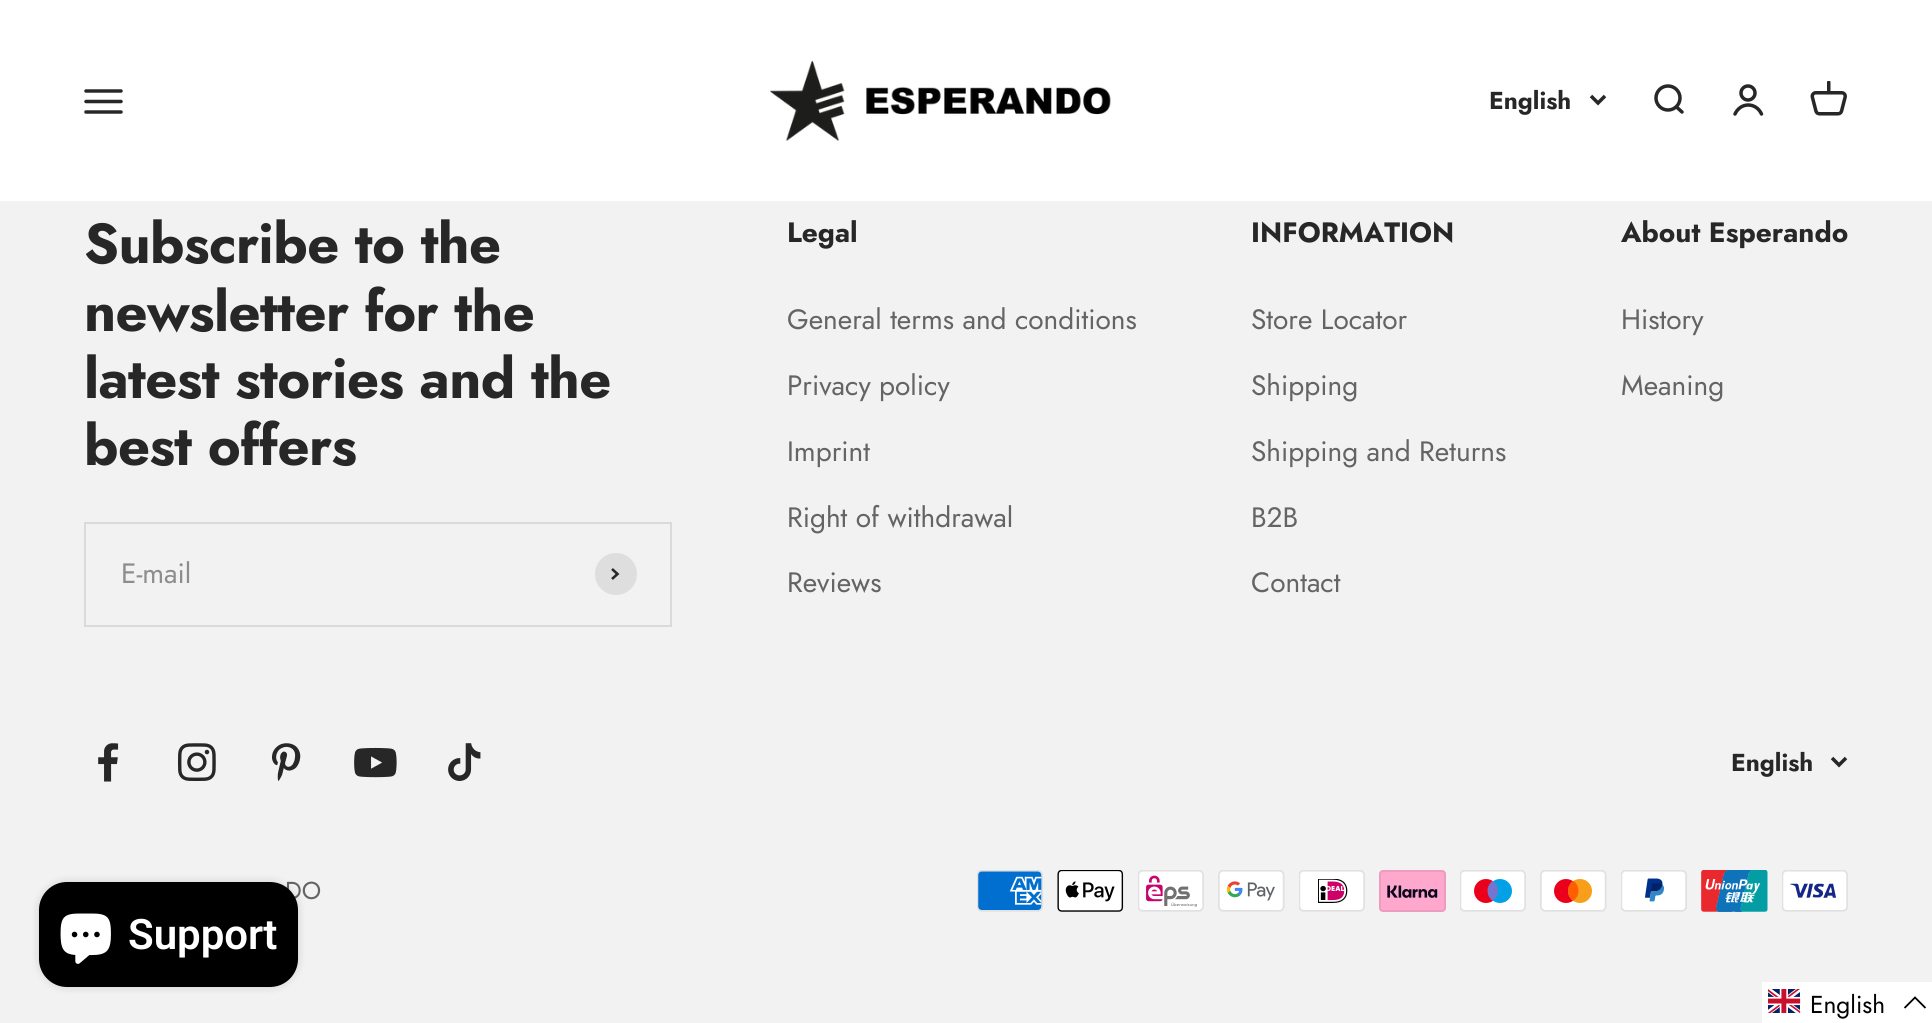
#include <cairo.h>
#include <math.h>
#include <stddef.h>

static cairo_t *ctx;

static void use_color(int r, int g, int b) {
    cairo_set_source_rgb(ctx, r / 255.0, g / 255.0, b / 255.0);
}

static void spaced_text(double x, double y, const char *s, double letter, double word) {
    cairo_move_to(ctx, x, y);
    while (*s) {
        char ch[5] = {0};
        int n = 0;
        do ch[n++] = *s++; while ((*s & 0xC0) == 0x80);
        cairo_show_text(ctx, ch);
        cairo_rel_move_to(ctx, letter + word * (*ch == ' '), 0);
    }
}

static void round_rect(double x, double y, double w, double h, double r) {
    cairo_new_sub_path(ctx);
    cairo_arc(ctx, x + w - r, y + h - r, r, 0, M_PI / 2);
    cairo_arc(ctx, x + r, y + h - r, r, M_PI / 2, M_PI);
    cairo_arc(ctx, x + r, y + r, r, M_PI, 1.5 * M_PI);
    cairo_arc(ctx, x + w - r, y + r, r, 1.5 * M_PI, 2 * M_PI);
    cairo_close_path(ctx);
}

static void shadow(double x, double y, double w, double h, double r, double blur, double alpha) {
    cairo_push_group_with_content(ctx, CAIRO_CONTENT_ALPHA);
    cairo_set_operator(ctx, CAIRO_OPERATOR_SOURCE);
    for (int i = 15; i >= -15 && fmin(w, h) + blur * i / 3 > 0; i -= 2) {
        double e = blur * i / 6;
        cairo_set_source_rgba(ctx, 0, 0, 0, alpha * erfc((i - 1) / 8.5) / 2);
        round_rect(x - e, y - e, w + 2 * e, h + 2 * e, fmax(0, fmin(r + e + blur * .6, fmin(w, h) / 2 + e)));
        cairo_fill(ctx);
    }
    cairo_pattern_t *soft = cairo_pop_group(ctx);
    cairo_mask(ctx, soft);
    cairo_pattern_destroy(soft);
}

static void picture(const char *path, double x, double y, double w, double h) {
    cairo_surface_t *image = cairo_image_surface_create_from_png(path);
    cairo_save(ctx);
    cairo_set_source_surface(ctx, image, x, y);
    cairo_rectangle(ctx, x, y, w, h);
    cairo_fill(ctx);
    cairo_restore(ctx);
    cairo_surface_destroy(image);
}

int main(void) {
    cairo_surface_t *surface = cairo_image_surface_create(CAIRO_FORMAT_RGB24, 1932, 1023);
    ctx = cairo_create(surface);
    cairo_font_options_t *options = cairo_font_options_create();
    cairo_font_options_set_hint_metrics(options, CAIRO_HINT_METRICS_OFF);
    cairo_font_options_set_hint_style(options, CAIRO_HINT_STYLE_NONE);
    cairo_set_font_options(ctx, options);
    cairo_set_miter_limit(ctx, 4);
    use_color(242, 242, 242);
    cairo_paint(ctx);
    use_color(255, 255, 255);
    cairo_rectangle(ctx, 0, 0, 1932, 201);
    cairo_fill(ctx);
    cairo_new_path(ctx);
    cairo_move_to(ctx, 86, 91);
    cairo_line_to(ctx, 121, 91);
    cairo_move_to(ctx, 86, 101.5);
    cairo_line_to(ctx, 121, 101.5);
    cairo_move_to(ctx, 86, 112);
    cairo_line_to(ctx, 121, 112);
    use_color(39, 39, 39);
    cairo_set_line_width(ctx, 3.5);
    cairo_set_line_cap(ctx, CAIRO_LINE_CAP_ROUND);
    cairo_stroke(ctx);
    picture("img1.png", 770, 60, 341, 81);
    cairo_select_font_face(ctx, "Jost", CAIRO_FONT_SLANT_NORMAL, CAIRO_FONT_WEIGHT_BOLD);
    cairo_set_font_size(ctx, 24.5);
    cairo_move_to(ctx, 1489, 109);
    cairo_show_text(ctx, "English");
    cairo_new_path(ctx);
    cairo_move_to(ctx, 1591, 96);
    cairo_line_to(ctx, 1598, 103);
    cairo_line_to(ctx, 1605, 96);
    cairo_set_line_cap(ctx, CAIRO_LINE_CAP_BUTT);
    cairo_stroke(ctx);
    cairo_arc(ctx, 1668, 98, 12, 0, 2 * M_PI);
    cairo_stroke(ctx);
    cairo_new_path(ctx);
    cairo_move_to(ctx, 1676.5, 107);
    cairo_line_to(ctx, 1682, 112);
    cairo_set_line_cap(ctx, CAIRO_LINE_CAP_ROUND);
    cairo_set_line_join(ctx, CAIRO_LINE_JOIN_ROUND);
    cairo_stroke(ctx);
    cairo_arc(ctx, 1748, 93, 7, 0, 2 * M_PI);
    cairo_set_line_cap(ctx, CAIRO_LINE_CAP_BUTT);
    cairo_set_line_join(ctx, CAIRO_LINE_JOIN_MITER);
    cairo_stroke(ctx);
    cairo_new_path(ctx);
    cairo_move_to(ctx, 1735, 114);
    cairo_curve_to(ctx, 1740.5, 102, 1756, 102, 1761.5, 114);
    cairo_set_line_cap(ctx, CAIRO_LINE_CAP_ROUND);
    cairo_stroke(ctx);
    picture("img2.png", 1810, 81, 37, 35);
    cairo_set_font_size(ctx, 56);
    spaced_text(84, 263, "Subscribe to the", -0.6, 0);
    spaced_text(84, 331, "newsletter for the", -0.6, 0);
    spaced_text(84, 398, "latest stories and the", -0.6, 0);
    spaced_text(84, 465, "best offers", -0.6, 0);
    cairo_rectangle(ctx, 85, 523, 586, 103);
    use_color(218, 218, 218);
    cairo_set_line_width(ctx, 2);
    cairo_set_line_cap(ctx, CAIRO_LINE_CAP_BUTT);
    cairo_stroke(ctx);
    cairo_select_font_face(ctx, "Jost", CAIRO_FONT_SLANT_NORMAL, CAIRO_FONT_WEIGHT_NORMAL);
    cairo_set_font_size(ctx, 28);
    use_color(141, 141, 141);
    cairo_move_to(ctx, 121, 583);
    cairo_show_text(ctx, "E-mail");
    use_color(222, 222, 222);
    cairo_new_path(ctx);
    cairo_arc(ctx, 616, 574, 21, 0, 2 * M_PI);
    cairo_fill(ctx);
    cairo_new_path(ctx);
    cairo_move_to(ctx, 612, 579);
    cairo_line_to(ctx, 617.5, 574);
    cairo_line_to(ctx, 612, 569);
    use_color(39, 39, 39);
    cairo_set_line_width(ctx, 2.6);
    cairo_stroke(ctx);
    cairo_select_font_face(ctx, "Jost", CAIRO_FONT_SLANT_NORMAL, CAIRO_FONT_WEIGHT_BOLD);
    cairo_move_to(ctx, 787, 242);
    cairo_show_text(ctx, "Legal");
    cairo_select_font_face(ctx, "Jost", CAIRO_FONT_SLANT_NORMAL, CAIRO_FONT_WEIGHT_NORMAL);
    use_color(100, 100, 100);
    cairo_move_to(ctx, 787, 329);
    cairo_show_text(ctx, "General terms and conditions");
    cairo_move_to(ctx, 787, 395);
    cairo_show_text(ctx, "Privacy policy");
    cairo_move_to(ctx, 787, 461);
    cairo_show_text(ctx, "Imprint");
    cairo_move_to(ctx, 787, 527);
    cairo_show_text(ctx, "Right of withdrawal");
    cairo_move_to(ctx, 787, 592);
    cairo_show_text(ctx, "Reviews");
    cairo_select_font_face(ctx, "Jost", CAIRO_FONT_SLANT_NORMAL, CAIRO_FONT_WEIGHT_BOLD);
    use_color(39, 39, 39);
    cairo_move_to(ctx, 1251, 242);
    cairo_show_text(ctx, "INFORMATION");
    cairo_select_font_face(ctx, "Jost", CAIRO_FONT_SLANT_NORMAL, CAIRO_FONT_WEIGHT_NORMAL);
    use_color(100, 100, 100);
    cairo_move_to(ctx, 1251, 329);
    cairo_show_text(ctx, "Store Locator");
    cairo_move_to(ctx, 1251, 395);
    cairo_show_text(ctx, "Shipping");
    cairo_move_to(ctx, 1251, 461);
    cairo_show_text(ctx, "Shipping and Returns");
    cairo_move_to(ctx, 1251, 527);
    cairo_show_text(ctx, "B2B");
    cairo_move_to(ctx, 1251, 592);
    cairo_show_text(ctx, "Contact");
    cairo_select_font_face(ctx, "Jost", CAIRO_FONT_SLANT_NORMAL, CAIRO_FONT_WEIGHT_BOLD);
    use_color(39, 39, 39);
    cairo_move_to(ctx, 1621, 242);
    cairo_show_text(ctx, "About Esperando");
    cairo_select_font_face(ctx, "Jost", CAIRO_FONT_SLANT_NORMAL, CAIRO_FONT_WEIGHT_NORMAL);
    use_color(100, 100, 100);
    cairo_move_to(ctx, 1621, 329);
    cairo_show_text(ctx, "History");
    cairo_move_to(ctx, 1621, 395);
    cairo_show_text(ctx, "Meaning");
    picture("img3.png", 98, 743, 21, 39);
    picture("img4.png", 178, 743, 38, 38);
    picture("img5.png", 271, 743, 30, 38);
    picture("img6.png", 354, 747, 43, 31);
    picture("img7.png", 448, 743, 33, 38);
    cairo_select_font_face(ctx, "Jost", CAIRO_FONT_SLANT_NORMAL, CAIRO_FONT_WEIGHT_BOLD);
    cairo_set_font_size(ctx, 24.5);
    use_color(39, 39, 39);
    cairo_move_to(ctx, 1731, 771);
    cairo_show_text(ctx, "English");
    cairo_new_path(ctx);
    cairo_move_to(ctx, 1832, 758);
    cairo_line_to(ctx, 1839, 765);
    cairo_line_to(ctx, 1846, 758);
    cairo_set_line_width(ctx, 3.5);
    cairo_stroke(ctx);
    cairo_select_font_face(ctx, "Jost", CAIRO_FONT_SLANT_NORMAL, CAIRO_FONT_WEIGHT_NORMAL);
    use_color(100, 100, 100);
    cairo_move_to(ctx, 285, 899);
    cairo_show_text(ctx, "DO");
    picture("img8.png", 977, 870, 66, 42);
    picture("img9.png", 1057, 870, 67, 42);
    picture("img10.png", 1138, 870, 66, 42);
    picture("img11.png", 1218, 870, 67, 42);
    picture("img12.png", 1299, 870, 66, 42);
    picture("img13.png", 1379, 870, 67, 42);
    picture("img14.png", 1460, 870, 66, 42);
    picture("img15.png", 1540, 870, 67, 42);
    picture("img16.png", 1621, 870, 66, 42);
    picture("img17.png", 1701, 870, 67, 42);
    picture("img18.png", 1782, 870, 66, 42);
    use_color(0, 0, 0);
    shadow(39, 882, 259, 105, 28, 4.5, 0.15);
    use_color(0, 0, 0);
    round_rect(39, 882, 259, 105, 28);
    cairo_fill(ctx);
    picture("img19.png", 60, 913, 51, 51);
    cairo_select_font_face(ctx, "Roboto SemiBold", CAIRO_FONT_SLANT_NORMAL, CAIRO_FONT_WEIGHT_NORMAL);
    cairo_set_font_size(ctx, 42);
    use_color(255, 255, 255);
    cairo_move_to(ctx, 128, 949);
    cairo_show_text(ctx, "Support");
    cairo_rectangle(ctx, 1762, 982, 170, 41);
    cairo_fill(ctx);
    picture("img20.png", 1768, 989, 33, 24);
    cairo_select_font_face(ctx, "Jost", CAIRO_FONT_SLANT_NORMAL, CAIRO_FONT_WEIGHT_NORMAL);
    cairo_set_font_size(ctx, 24.5);
    use_color(0, 0, 0);
    cairo_move_to(ctx, 1810, 1013);
    cairo_show_text(ctx, "English");
    cairo_new_path(ctx);
    cairo_move_to(ctx, 1925.5, 1008);
    cairo_line_to(ctx, 1915, 997.5);
    cairo_line_to(ctx, 1904.5, 1008);
    cairo_set_line_width(ctx, 1.8);
    cairo_stroke(ctx);
    cairo_surface_write_to_png(surface, "result.png");
    cairo_font_options_destroy(options);
    cairo_destroy(ctx);
    cairo_surface_destroy(surface);
    return 0;
}
